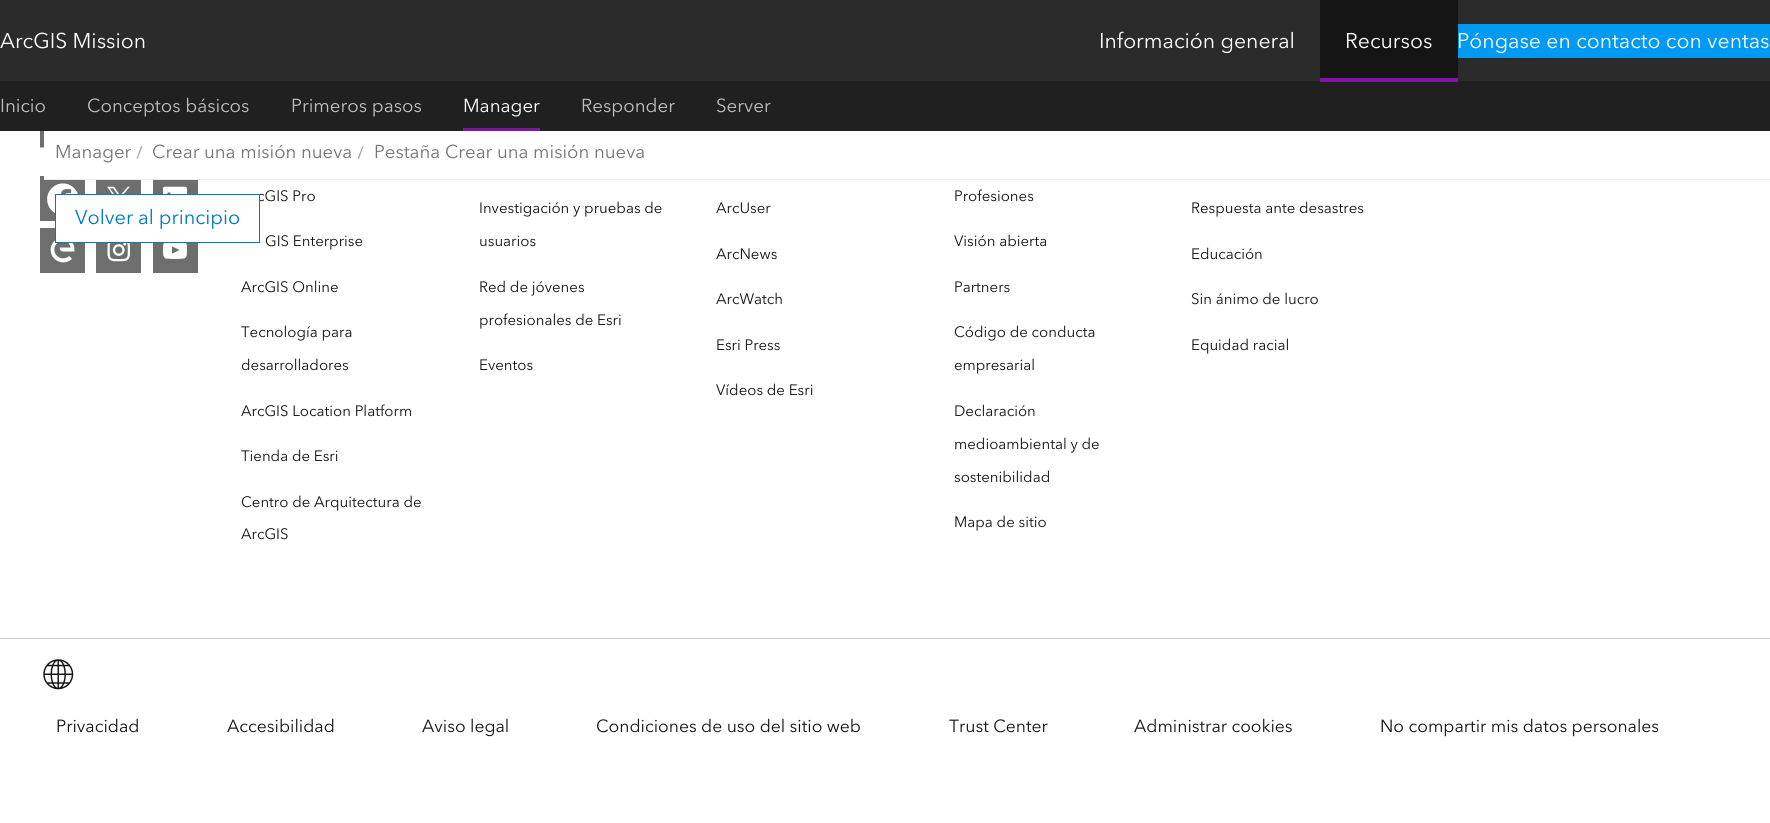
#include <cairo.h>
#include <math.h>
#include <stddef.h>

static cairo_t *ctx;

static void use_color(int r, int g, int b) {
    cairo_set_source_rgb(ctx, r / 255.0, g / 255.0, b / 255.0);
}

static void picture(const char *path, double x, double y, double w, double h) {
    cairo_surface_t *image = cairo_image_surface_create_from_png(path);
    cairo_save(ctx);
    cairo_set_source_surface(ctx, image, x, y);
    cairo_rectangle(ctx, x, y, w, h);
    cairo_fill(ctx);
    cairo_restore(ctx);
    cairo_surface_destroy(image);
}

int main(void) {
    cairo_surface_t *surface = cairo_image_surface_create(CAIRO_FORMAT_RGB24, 1770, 823);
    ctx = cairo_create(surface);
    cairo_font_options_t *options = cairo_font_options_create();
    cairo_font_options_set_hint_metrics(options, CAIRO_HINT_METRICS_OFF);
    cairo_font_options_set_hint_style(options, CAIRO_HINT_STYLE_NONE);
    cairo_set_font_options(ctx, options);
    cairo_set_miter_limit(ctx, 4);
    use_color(255, 255, 255);
    cairo_paint(ctx);
    use_color(43, 43, 43);
    cairo_rectangle(ctx, 0, 0, 1770, 81);
    cairo_fill(ctx);
    cairo_select_font_face(ctx, "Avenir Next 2", CAIRO_FONT_SLANT_NORMAL, CAIRO_FONT_WEIGHT_NORMAL);
    cairo_set_font_size(ctx, 21.25);
    use_color(255, 255, 255);
    cairo_move_to(ctx, 0, 48);
    cairo_show_text(ctx, "ArcGIS Mission");
    cairo_move_to(ctx, 1099, 48);
    cairo_show_text(ctx, "Información general");
    use_color(21, 21, 21);
    cairo_rectangle(ctx, 1320, 0, 138, 78);
    cairo_fill(ctx);
    use_color(32, 32, 32);
    cairo_rectangle(ctx, 0, 81, 1770, 50);
    cairo_fill(ctx);
    use_color(129, 19, 165);
    cairo_rectangle(ctx, 1320, 78, 138, 4);
    cairo_fill(ctx);
    use_color(255, 255, 255);
    cairo_move_to(ctx, 1345, 48);
    cairo_show_text(ctx, "Recursos");
    use_color(0, 154, 242);
    cairo_rectangle(ctx, 1458, 24, 312, 34);
    cairo_fill(ctx);
    use_color(255, 255, 255);
    cairo_move_to(ctx, 1457, 48);
    cairo_show_text(ctx, "Póngase en contacto con ventas");
    cairo_set_font_size(ctx, 18.75);
    use_color(191, 191, 191);
    cairo_move_to(ctx, 0, 112);
    cairo_show_text(ctx, "Inicio");
    cairo_move_to(ctx, 87, 112);
    cairo_show_text(ctx, "Conceptos básicos");
    cairo_move_to(ctx, 291, 112);
    cairo_show_text(ctx, "Primeros pasos");
    use_color(129, 19, 165);
    cairo_rectangle(ctx, 463, 128, 77, 3);
    cairo_fill(ctx);
    use_color(255, 255, 255);
    cairo_move_to(ctx, 463, 112);
    cairo_show_text(ctx, "Manager");
    use_color(191, 191, 191);
    cairo_move_to(ctx, 581, 112);
    cairo_show_text(ctx, "Responder");
    cairo_move_to(ctx, 716, 112);
    cairo_show_text(ctx, "Server");
    use_color(110, 110, 110);
    cairo_rectangle(ctx, 40, 176, 45, 45);
    cairo_fill(ctx);
    use_color(255, 255, 255);
    cairo_rectangle(ctx, 44, 176, 41, 3);
    cairo_fill(ctx);
    use_color(237, 237, 237);
    cairo_rectangle(ctx, 44, 179, 1726, 1);
    cairo_fill(ctx);
    cairo_set_font_size(ctx, 18.6);
    use_color(117, 117, 117);
    cairo_move_to(ctx, 55, 158);
    cairo_show_text(ctx, "Manager");
    use_color(169, 169, 169);
    cairo_new_path(ctx);
    cairo_move_to(ctx, 137.5, 159);
    cairo_line_to(ctx, 136.5, 158.5);
    cairo_line_to(ctx, 141, 146);
    cairo_line_to(ctx, 142.5, 146.5);
    cairo_close_path(ctx);
    cairo_fill(ctx);
    use_color(117, 117, 117);
    cairo_move_to(ctx, 152, 158);
    cairo_show_text(ctx, "Crear una misión nueva");
    use_color(169, 169, 169);
    cairo_new_path(ctx);
    cairo_move_to(ctx, 359, 159);
    cairo_line_to(ctx, 357.5, 158.5);
    cairo_line_to(ctx, 362.5, 146);
    cairo_line_to(ctx, 363.5, 146.5);
    cairo_close_path(ctx);
    cairo_fill(ctx);
    use_color(117, 117, 117);
    cairo_move_to(ctx, 374, 158);
    cairo_show_text(ctx, "Pestaña Crear una misión nueva");
    picture("img2.png", 47, 183, 31, 30);
    use_color(110, 110, 110);
    cairo_rectangle(ctx, 40, 228, 45, 45);
    cairo_fill(ctx);
    picture("img5.png", 50, 240, 25, 23);
    cairo_select_font_face(ctx, "Avenir Next", CAIRO_FONT_SLANT_NORMAL, CAIRO_FONT_WEIGHT_NORMAL);
    cairo_set_font_size(ctx, 15);
    use_color(21, 21, 21);
    cairo_move_to(ctx, 257, 201);
    cairo_show_text(ctx, "cGIS Pro");
    use_color(255, 255, 255);
    cairo_rectangle(ctx, 55.5, 194.5, 204, 48);
    cairo_fill_preserve(ctx);
    use_color(0, 121, 193);
    cairo_set_line_width(ctx, 1);
    cairo_stroke(ctx);
    cairo_select_font_face(ctx, "Avenir Next 2", CAIRO_FONT_SLANT_NORMAL, CAIRO_FONT_WEIGHT_NORMAL);
    cairo_set_font_size(ctx, 20);
    cairo_move_to(ctx, 75, 224);
    cairo_show_text(ctx, "Volver al principio");
    picture("img1.png", 40, 131, 4, 17);
    use_color(110, 110, 110);
    cairo_rectangle(ctx, 96, 180, 45, 14);
    cairo_fill(ctx);
    picture("img3.png", 107, 186, 23, 8);
    cairo_rectangle(ctx, 153, 180, 45, 14);
    cairo_fill(ctx);
    picture("img4.png", 163, 186, 24, 8);
    cairo_rectangle(ctx, 96, 243, 45, 30);
    cairo_fill(ctx);
    picture("img6.png", 107, 243, 23, 19);
    cairo_rectangle(ctx, 153, 243, 45, 30);
    cairo_fill(ctx);
    picture("img7.png", 163, 243, 24, 16);
    cairo_select_font_face(ctx, "Avenir Next", CAIRO_FONT_SLANT_NORMAL, CAIRO_FONT_WEIGHT_NORMAL);
    cairo_set_font_size(ctx, 15);
    use_color(21, 21, 21);
    cairo_move_to(ctx, 265, 246);
    cairo_show_text(ctx, "GIS Enterprise");
    cairo_move_to(ctx, 241, 292);
    cairo_show_text(ctx, "ArcGIS Online");
    cairo_move_to(ctx, 241, 337);
    cairo_show_text(ctx, "Tecnología para");
    cairo_move_to(ctx, 241, 370);
    cairo_show_text(ctx, "desarrolladores");
    cairo_move_to(ctx, 241, 416);
    cairo_show_text(ctx, "ArcGIS Location Platform");
    cairo_move_to(ctx, 241, 461);
    cairo_show_text(ctx, "Tienda de Esri");
    cairo_move_to(ctx, 241, 507);
    cairo_show_text(ctx, "Centro de Arquitectura de");
    cairo_move_to(ctx, 241, 539);
    cairo_show_text(ctx, "ArcGIS");
    cairo_move_to(ctx, 479, 213);
    cairo_show_text(ctx, "Investigación y pruebas de");
    cairo_move_to(ctx, 479, 246);
    cairo_show_text(ctx, "usuarios");
    cairo_move_to(ctx, 479, 292);
    cairo_show_text(ctx, "Red de jóvenes");
    cairo_move_to(ctx, 479, 325);
    cairo_show_text(ctx, "profesionales de Esri");
    cairo_move_to(ctx, 479, 370);
    cairo_show_text(ctx, "Eventos");
    cairo_move_to(ctx, 716, 213);
    cairo_show_text(ctx, "ArcUser");
    cairo_move_to(ctx, 716, 259);
    cairo_show_text(ctx, "ArcNews");
    cairo_move_to(ctx, 716, 304);
    cairo_show_text(ctx, "ArcWatch");
    cairo_move_to(ctx, 716, 350);
    cairo_show_text(ctx, "Esri Press");
    cairo_move_to(ctx, 716, 395);
    cairo_show_text(ctx, "Vídeos de Esri");
    cairo_move_to(ctx, 954, 201);
    cairo_show_text(ctx, "Profesiones");
    cairo_move_to(ctx, 954, 246);
    cairo_show_text(ctx, "Visión abierta");
    cairo_move_to(ctx, 954, 292);
    cairo_show_text(ctx, "Partners");
    cairo_move_to(ctx, 954, 337);
    cairo_show_text(ctx, "Código de conducta");
    cairo_move_to(ctx, 954, 370);
    cairo_show_text(ctx, "empresarial");
    cairo_move_to(ctx, 954, 416);
    cairo_show_text(ctx, "Declaración");
    cairo_move_to(ctx, 954, 449);
    cairo_show_text(ctx, "medioambiental y de");
    cairo_move_to(ctx, 954, 482);
    cairo_show_text(ctx, "sostenibilidad");
    cairo_move_to(ctx, 954, 527);
    cairo_show_text(ctx, "Mapa de sitio");
    cairo_move_to(ctx, 1191, 213);
    cairo_show_text(ctx, "Respuesta ante desastres");
    cairo_move_to(ctx, 1191, 259);
    cairo_show_text(ctx, "Educación");
    cairo_move_to(ctx, 1191, 304);
    cairo_show_text(ctx, "Sin ánimo de lucro");
    cairo_move_to(ctx, 1191, 350);
    cairo_show_text(ctx, "Equidad racial");
    use_color(202, 202, 202);
    cairo_rectangle(ctx, 0, 638, 1770, 1);
    cairo_fill(ctx);
    picture("img8.png", 43, 659, 31, 31);
    cairo_set_font_size(ctx, 17.5);
    use_color(21, 21, 21);
    cairo_move_to(ctx, 56, 732);
    cairo_show_text(ctx, "Privacidad");
    cairo_move_to(ctx, 227, 732);
    cairo_show_text(ctx, "Accesibilidad");
    cairo_move_to(ctx, 422, 732);
    cairo_show_text(ctx, "Aviso legal");
    cairo_move_to(ctx, 596, 732);
    cairo_show_text(ctx, "Condiciones de uso del sitio web");
    cairo_move_to(ctx, 949, 732);
    cairo_show_text(ctx, "Trust Center");
    cairo_move_to(ctx, 1134, 732);
    cairo_show_text(ctx, "Administrar cookies");
    cairo_move_to(ctx, 1380, 732);
    cairo_show_text(ctx, "No compartir mis datos personales");
    cairo_surface_write_to_png(surface, "result.png");
    cairo_font_options_destroy(options);
    cairo_destroy(ctx);
    cairo_surface_destroy(surface);
    return 0;
}
